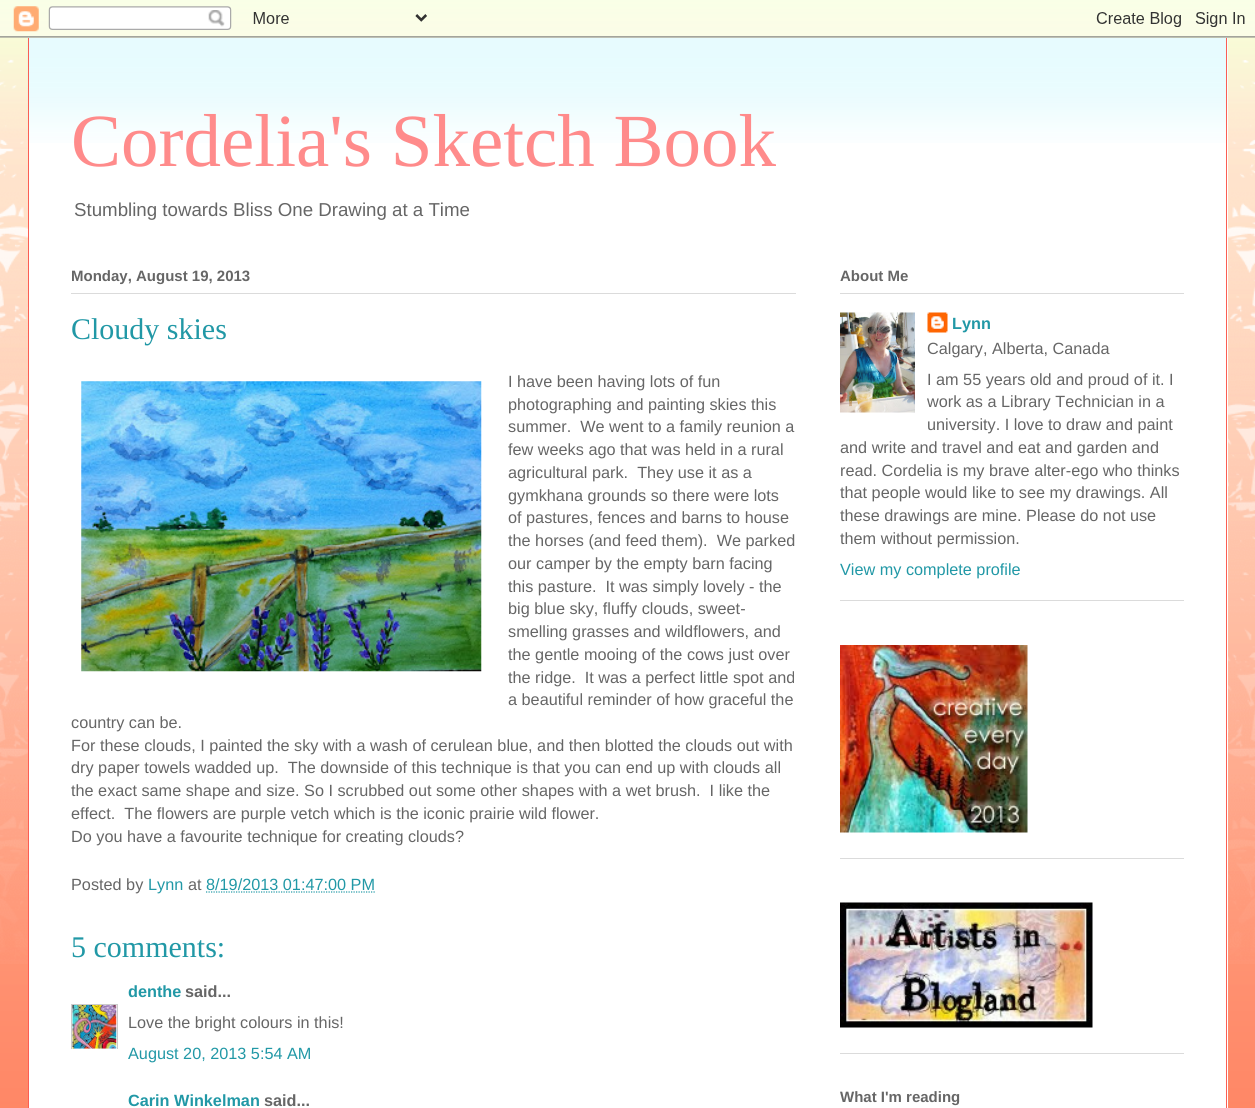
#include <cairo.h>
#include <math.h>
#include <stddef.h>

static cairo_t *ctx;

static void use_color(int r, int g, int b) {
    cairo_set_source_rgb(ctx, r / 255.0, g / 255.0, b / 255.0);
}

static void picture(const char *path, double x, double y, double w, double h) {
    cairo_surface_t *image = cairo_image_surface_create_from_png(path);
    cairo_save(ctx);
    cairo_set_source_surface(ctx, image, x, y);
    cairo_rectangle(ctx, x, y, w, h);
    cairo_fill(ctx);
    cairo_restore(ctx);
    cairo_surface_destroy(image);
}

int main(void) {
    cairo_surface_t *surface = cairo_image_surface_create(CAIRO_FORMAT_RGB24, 1255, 1108);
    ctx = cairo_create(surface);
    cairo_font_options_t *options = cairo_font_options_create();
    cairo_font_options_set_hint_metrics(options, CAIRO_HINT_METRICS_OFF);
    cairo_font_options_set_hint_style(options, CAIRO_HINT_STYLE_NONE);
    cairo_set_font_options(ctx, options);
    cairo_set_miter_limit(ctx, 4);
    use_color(255, 255, 255);
    cairo_paint(ctx);
    picture("img1.png", 0, 0, 1255, 1108);
    picture("img3.png", 0, 37, 1228, 927);
    use_color(255, 255, 255);
    cairo_rectangle(ctx, 29, 38, 1199, 1070);
    cairo_fill(ctx);
    picture("img4.png", 27, 37, 1201, 106);
    picture("img2.png", 0, 0, 1255, 38);
    use_color(251, 94, 83);
    cairo_rectangle(ctx, 1226, 38, 1, 1070);
    cairo_fill(ctx);
    cairo_rectangle(ctx, 28, 38, 1, 1070);
    cairo_fill(ctx);
    picture("img5.png", 1228, 60, 27, 904);
    cairo_select_font_face(ctx, "Liberation Serif", CAIRO_FONT_SLANT_NORMAL, CAIRO_FONT_WEIGHT_NORMAL);
    cairo_set_font_size(ctx, 75);
    use_color(255, 139, 139);
    cairo_move_to(ctx, 71, 166);
    cairo_show_text(ctx, "Cordelia's Sketch Book");
    cairo_select_font_face(ctx, "Liberation Sans", CAIRO_FONT_SLANT_NORMAL, CAIRO_FONT_WEIGHT_NORMAL);
    cairo_set_font_size(ctx, 18.7);
    use_color(102, 102, 102);
    cairo_move_to(ctx, 74, 216);
    cairo_show_text(ctx, "Stumbling towards Bliss One Drawing at a Time");
    use_color(219, 219, 219);
    cairo_rectangle(ctx, 71, 293, 725, 1);
    cairo_fill(ctx);
    cairo_select_font_face(ctx, "Liberation Sans", CAIRO_FONT_SLANT_NORMAL, CAIRO_FONT_WEIGHT_BOLD);
    cairo_set_font_size(ctx, 15);
    use_color(102, 102, 102);
    cairo_move_to(ctx, 71, 281);
    cairo_show_text(ctx, "Monday, August 19, 2013");
    cairo_select_font_face(ctx, "Liberation Serif", CAIRO_FONT_SLANT_NORMAL, CAIRO_FONT_WEIGHT_NORMAL);
    cairo_set_font_size(ctx, 30);
    use_color(33, 152, 166);
    cairo_move_to(ctx, 71, 339);
    cairo_show_text(ctx, "Cloudy skies");
    picture("img6.png", 81, 381, 401, 291);
    cairo_select_font_face(ctx, "Liberation Sans", CAIRO_FONT_SLANT_NORMAL, CAIRO_FONT_WEIGHT_NORMAL);
    cairo_set_font_size(ctx, 16.25);
    use_color(102, 102, 102);
    cairo_move_to(ctx, 508, 387);
    cairo_show_text(ctx, "I have been having lots of fun");
    cairo_move_to(ctx, 508, 410);
    cairo_show_text(ctx, "photographing and painting skies this");
    cairo_move_to(ctx, 508, 432);
    cairo_show_text(ctx, "summer.  We went to a family reunion a");
    cairo_move_to(ctx, 508, 455);
    cairo_show_text(ctx, "few weeks ago that was held in a rural");
    cairo_move_to(ctx, 508, 478);
    cairo_show_text(ctx, "agricultural park.  They use it as a");
    cairo_move_to(ctx, 508, 501);
    cairo_show_text(ctx, "gymkhana grounds so there were lots");
    cairo_move_to(ctx, 508, 523);
    cairo_show_text(ctx, "of pastures, fences and barns to house");
    cairo_move_to(ctx, 508, 546);
    cairo_show_text(ctx, "the horses (and feed them).  We parked");
    cairo_move_to(ctx, 508, 569);
    cairo_show_text(ctx, "our camper by the empty barn facing");
    cairo_move_to(ctx, 508, 592);
    cairo_show_text(ctx, "this pasture.  It was simply lovely - the");
    cairo_move_to(ctx, 508, 614);
    cairo_show_text(ctx, "big blue sky, fluffy clouds, sweet-");
    cairo_move_to(ctx, 508, 637);
    cairo_show_text(ctx, "smelling grasses and wildflowers, and");
    cairo_move_to(ctx, 508, 660);
    cairo_show_text(ctx, "the gentle mooing of the cows just over");
    cairo_move_to(ctx, 508, 683);
    cairo_show_text(ctx, "the ridge.  It was a perfect little spot and");
    cairo_move_to(ctx, 508, 705);
    cairo_show_text(ctx, "a beautiful reminder of how graceful the");
    cairo_move_to(ctx, 71, 728);
    cairo_show_text(ctx, "country can be.");
    cairo_move_to(ctx, 71, 751);
    cairo_show_text(ctx, "For these clouds, I painted the sky with a wash of cerulean blue, and then blotted the clouds out with");
    cairo_move_to(ctx, 71, 773);
    cairo_show_text(ctx, "dry paper towels wadded up.  The downside of this technique is that you can end up with clouds all");
    cairo_move_to(ctx, 71, 796);
    cairo_show_text(ctx, "the exact same shape and size. So I scrubbed out some other shapes with a wet brush.  I like the");
    cairo_move_to(ctx, 71, 819);
    cairo_show_text(ctx, "effect.  The flowers are purple vetch which is the iconic prairie wild flower.");
    cairo_move_to(ctx, 71, 842);
    cairo_show_text(ctx, "Do you have a favourite technique for creating clouds?");
    cairo_move_to(ctx, 71, 890);
    cairo_show_text(ctx, "Posted by");
    use_color(33, 152, 166);
    cairo_move_to(ctx, 148, 890);
    cairo_show_text(ctx, "Lynn");
    use_color(102, 102, 102);
    cairo_move_to(ctx, 188, 890);
    cairo_show_text(ctx, "at");
    use_color(33, 152, 166);
    cairo_move_to(ctx, 206, 890);
    cairo_show_text(ctx, "8/19/2013 01:47:00 PM");
    cairo_new_path(ctx);
    cairo_move_to(ctx, 206, 892);
    cairo_line_to(ctx, 375, 892);
    cairo_set_line_width(ctx, 1.2);
    cairo_set_dash(ctx, (double[]){1.25, 1.25}, 2, 0);
    cairo_stroke(ctx);
    cairo_select_font_face(ctx, "Liberation Serif", CAIRO_FONT_SLANT_NORMAL, CAIRO_FONT_WEIGHT_NORMAL);
    cairo_set_font_size(ctx, 30);
    cairo_move_to(ctx, 71, 957);
    cairo_show_text(ctx, "5 comments:");
    cairo_select_font_face(ctx, "Liberation Sans", CAIRO_FONT_SLANT_NORMAL, CAIRO_FONT_WEIGHT_BOLD);
    cairo_set_font_size(ctx, 16.25);
    cairo_move_to(ctx, 128, 997);
    cairo_show_text(ctx, "denthe");
    use_color(102, 102, 102);
    cairo_move_to(ctx, 185, 997);
    cairo_show_text(ctx, "said...");
    cairo_save(ctx);
    cairo_rectangle(ctx, 71, 1004, 47, 45);
    cairo_clip(ctx);
    cairo_rectangle(ctx, 71.5, 1004.5, 46, 45);
    use_color(204, 204, 204);
    cairo_set_line_width(ctx, 1);
    cairo_set_dash(ctx, NULL, 0, 0);
    cairo_stroke(ctx);
    cairo_restore(ctx);
    picture("img7.png", 72, 1005, 45, 44);
    cairo_select_font_face(ctx, "Liberation Sans", CAIRO_FONT_SLANT_NORMAL, CAIRO_FONT_WEIGHT_NORMAL);
    cairo_move_to(ctx, 128, 1028);
    cairo_show_text(ctx, "Love the bright colours in this!");
    use_color(33, 152, 166);
    cairo_move_to(ctx, 128, 1059);
    cairo_show_text(ctx, "August 20, 2013 5:54 AM");
    cairo_select_font_face(ctx, "Liberation Sans", CAIRO_FONT_SLANT_NORMAL, CAIRO_FONT_WEIGHT_BOLD);
    cairo_move_to(ctx, 128, 1106);
    cairo_show_text(ctx, "Carin Winkelman");
    use_color(102, 102, 102);
    cairo_move_to(ctx, 264, 1106);
    cairo_show_text(ctx, "said...");
    use_color(219, 219, 219);
    cairo_rectangle(ctx, 840, 600, 344, 1);
    cairo_fill(ctx);
    cairo_rectangle(ctx, 840, 293, 344, 1);
    cairo_fill(ctx);
    cairo_set_font_size(ctx, 15);
    use_color(102, 102, 102);
    cairo_move_to(ctx, 840, 281);
    cairo_show_text(ctx, "About Me");
    picture("img8.png", 840, 312, 75, 101);
    picture("img9.png", 927, 312, 21, 21);
    cairo_set_font_size(ctx, 16.25);
    use_color(33, 152, 166);
    cairo_move_to(ctx, 952, 329);
    cairo_show_text(ctx, "Lynn");
    cairo_select_font_face(ctx, "Liberation Sans", CAIRO_FONT_SLANT_NORMAL, CAIRO_FONT_WEIGHT_NORMAL);
    use_color(102, 102, 102);
    cairo_move_to(ctx, 927, 354);
    cairo_show_text(ctx, "Calgary, Alberta, Canada");
    cairo_move_to(ctx, 927, 385);
    cairo_show_text(ctx, "I am 55 years old and proud of it. I");
    cairo_move_to(ctx, 927, 407);
    cairo_show_text(ctx, "work as a Library Technician in a");
    cairo_move_to(ctx, 927, 430);
    cairo_show_text(ctx, "university. I love to draw and paint");
    cairo_move_to(ctx, 840, 453);
    cairo_show_text(ctx, "and write and travel and eat and garden and");
    cairo_move_to(ctx, 840, 476);
    cairo_show_text(ctx, "read. Cordelia is my brave alter-ego who thinks");
    cairo_move_to(ctx, 840, 498);
    cairo_show_text(ctx, "that people would like to see my drawings. All");
    cairo_move_to(ctx, 840, 521);
    cairo_show_text(ctx, "these drawings are mine. Please do not use");
    cairo_move_to(ctx, 840, 544);
    cairo_show_text(ctx, "them without permission.");
    use_color(33, 152, 166);
    cairo_move_to(ctx, 840, 575);
    cairo_show_text(ctx, "View my complete profile");
    use_color(219, 219, 219);
    cairo_rectangle(ctx, 840, 858, 344, 1);
    cairo_fill(ctx);
    picture("img10.png", 840, 645, 188, 188);
    cairo_rectangle(ctx, 840, 1053, 344, 1);
    cairo_fill(ctx);
    picture("img11.png", 840, 902, 253, 126);
    cairo_select_font_face(ctx, "Liberation Sans", CAIRO_FONT_SLANT_NORMAL, CAIRO_FONT_WEIGHT_BOLD);
    cairo_set_font_size(ctx, 15);
    use_color(102, 102, 102);
    cairo_move_to(ctx, 840, 1102);
    cairo_show_text(ctx, "What I'm reading");
    cairo_surface_write_to_png(surface, "result.png");
    cairo_font_options_destroy(options);
    cairo_destroy(ctx);
    cairo_surface_destroy(surface);
    return 0;
}
